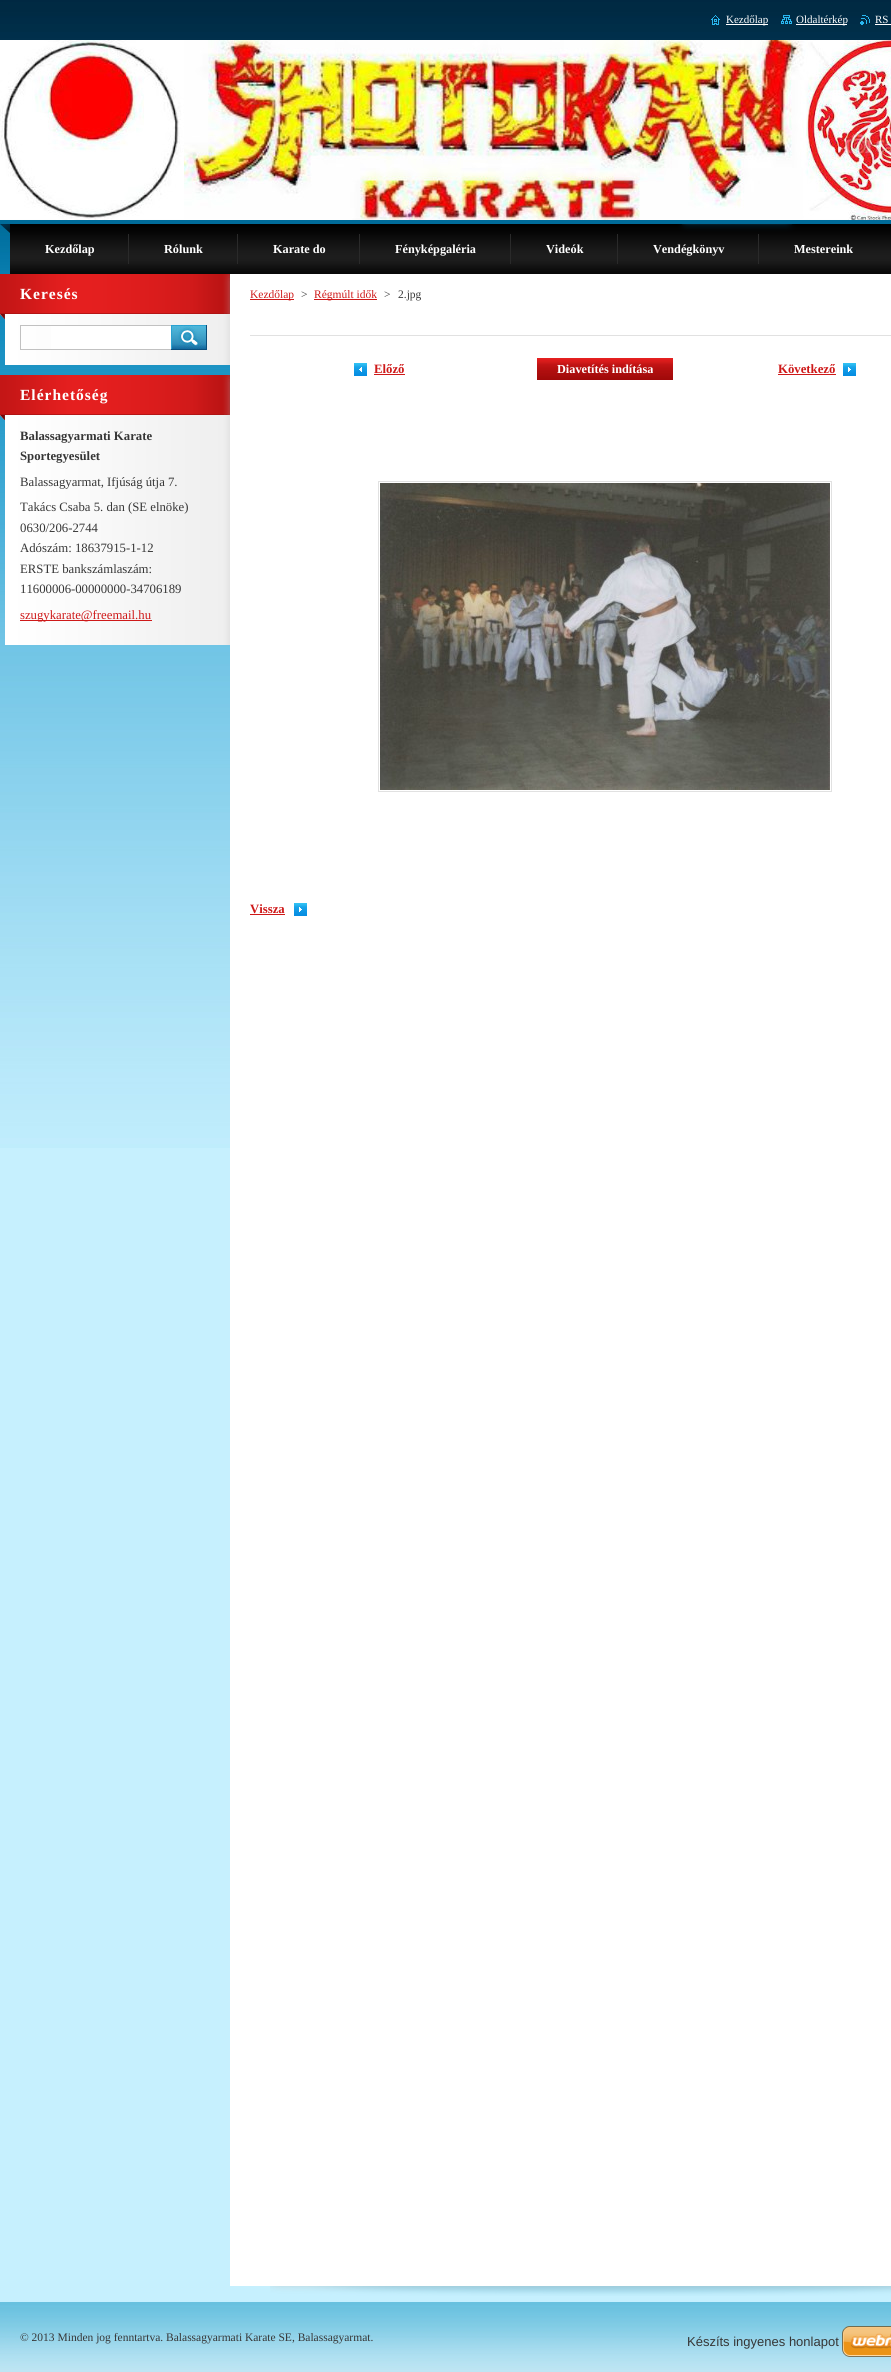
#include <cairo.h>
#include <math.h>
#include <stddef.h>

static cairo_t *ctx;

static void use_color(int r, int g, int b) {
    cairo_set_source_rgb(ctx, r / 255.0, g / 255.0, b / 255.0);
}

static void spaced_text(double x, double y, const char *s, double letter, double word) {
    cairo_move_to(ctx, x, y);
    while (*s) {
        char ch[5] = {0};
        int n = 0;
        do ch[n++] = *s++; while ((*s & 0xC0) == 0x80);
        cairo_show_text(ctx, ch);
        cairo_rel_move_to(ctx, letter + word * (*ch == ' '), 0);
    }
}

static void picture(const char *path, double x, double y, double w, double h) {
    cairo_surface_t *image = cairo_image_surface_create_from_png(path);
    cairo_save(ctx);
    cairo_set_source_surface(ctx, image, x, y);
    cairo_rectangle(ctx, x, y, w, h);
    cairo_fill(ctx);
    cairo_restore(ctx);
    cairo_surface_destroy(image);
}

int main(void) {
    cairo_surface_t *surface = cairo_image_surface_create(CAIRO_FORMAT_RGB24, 891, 2372);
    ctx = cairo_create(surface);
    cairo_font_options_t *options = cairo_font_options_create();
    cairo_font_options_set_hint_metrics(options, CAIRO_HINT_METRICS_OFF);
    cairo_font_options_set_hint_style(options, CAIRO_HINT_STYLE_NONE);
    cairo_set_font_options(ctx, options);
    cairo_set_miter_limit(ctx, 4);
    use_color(198, 240, 254);
    cairo_paint(ctx);
    picture("img1.png", 0, 0, 891, 1148);
    picture("img2.png", 711, 15, 9, 10);
    use_color(255, 255, 255);
    cairo_rectangle(ctx, 726, 24, 42, 1);
    cairo_fill(ctx);
    cairo_select_font_face(ctx, "Liberation Serif", CAIRO_FONT_SLANT_NORMAL, CAIRO_FONT_WEIGHT_NORMAL);
    cairo_set_font_size(ctx, 11);
    cairo_move_to(ctx, 726, 23);
    cairo_show_text(ctx, "Kezdőlap");
    picture("img3.png", 781, 15, 11, 9);
    cairo_rectangle(ctx, 796, 24, 51, 1);
    cairo_fill(ctx);
    cairo_move_to(ctx, 796, 23);
    cairo_show_text(ctx, "Oldaltérkép");
    picture("img4.png", 860, 15, 10, 10);
    cairo_move_to(ctx, 875, 23);
    cairo_show_text(ctx, "RS");
    cairo_rectangle(ctx, 875, 24, 16, 1);
    cairo_fill(ctx);
    picture("img5.png", 0, 40, 891, 180);
    picture("img6.png", 0, 224, 891, 50);
    use_color(42, 42, 42);
    cairo_rectangle(ctx, 128, 234, 1, 30);
    cairo_fill(ctx);
    cairo_select_font_face(ctx, "Liberation Serif", CAIRO_FONT_SLANT_NORMAL, CAIRO_FONT_WEIGHT_BOLD);
    cairo_set_font_size(ctx, 12.25);
    use_color(255, 255, 255);
    cairo_move_to(ctx, 45, 253);
    cairo_show_text(ctx, "Kezdőlap");
    use_color(42, 42, 42);
    cairo_rectangle(ctx, 237, 234, 1, 30);
    cairo_fill(ctx);
    use_color(255, 255, 255);
    cairo_move_to(ctx, 164, 253);
    cairo_show_text(ctx, "Rólunk");
    use_color(42, 42, 42);
    cairo_rectangle(ctx, 359, 234, 1, 30);
    cairo_fill(ctx);
    use_color(255, 255, 255);
    cairo_move_to(ctx, 273, 253);
    cairo_show_text(ctx, "Karate do");
    use_color(42, 42, 42);
    cairo_rectangle(ctx, 510, 234, 1, 30);
    cairo_fill(ctx);
    use_color(255, 255, 255);
    cairo_move_to(ctx, 395, 253);
    cairo_show_text(ctx, "Fényképgaléria");
    use_color(42, 42, 42);
    cairo_rectangle(ctx, 617, 234, 1, 30);
    cairo_fill(ctx);
    use_color(255, 255, 255);
    cairo_move_to(ctx, 546, 253);
    cairo_show_text(ctx, "Videók");
    use_color(42, 42, 42);
    cairo_rectangle(ctx, 758, 234, 1, 30);
    cairo_fill(ctx);
    use_color(255, 255, 255);
    cairo_move_to(ctx, 653, 253);
    cairo_show_text(ctx, "Vendégkönyv");
    cairo_move_to(ctx, 794, 253);
    cairo_show_text(ctx, "Mestereink");
    picture("img7.png", 5, 319, 225, 46);
    picture("img8.png", 0, 274, 230, 45);
    cairo_set_font_size(ctx, 15.5);
    spaced_text(20, 299, "Keresés", 1, 0);
    cairo_rectangle(ctx, 51, 326, 120, 23);
    cairo_fill(ctx);
    cairo_rectangle(ctx, 20.5, 325.5, 151, 24);
    use_color(193, 193, 193);
    cairo_set_line_width(ctx, 1);
    cairo_stroke(ctx);
    picture("img9.png", 171, 325, 36, 25);
    picture("img10.png", 5, 420, 225, 225);
    picture("img11.png", 0, 375, 230, 45);
    use_color(255, 255, 255);
    spaced_text(20, 400, "Elérhetőség", 1, 0);
    cairo_set_font_size(ctx, 12.75);
    use_color(54, 54, 54);
    cairo_move_to(ctx, 20, 440);
    cairo_show_text(ctx, "Balassagyarmati Karate");
    cairo_move_to(ctx, 20, 460);
    cairo_show_text(ctx, "Sportegyesület");
    cairo_select_font_face(ctx, "Liberation Serif", CAIRO_FONT_SLANT_NORMAL, CAIRO_FONT_WEIGHT_NORMAL);
    cairo_move_to(ctx, 20, 486);
    cairo_show_text(ctx, "Balassagyarmat, Ifjúság útja 7.");
    cairo_move_to(ctx, 20, 511);
    cairo_show_text(ctx, "Takács Csaba 5. dan (SE elnöke)");
    cairo_move_to(ctx, 20, 532);
    cairo_show_text(ctx, "0630/206-2744");
    cairo_move_to(ctx, 20, 552);
    cairo_show_text(ctx, "Adószám: 18637915-1-12");
    cairo_move_to(ctx, 20, 573);
    cairo_show_text(ctx, "ERSTE bankszámlaszám:");
    cairo_move_to(ctx, 20, 593);
    cairo_show_text(ctx, "11600006-00000000-34706189");
    use_color(206, 25, 25);
    cairo_rectangle(ctx, 20, 620, 46, 1);
    cairo_fill(ctx);
    cairo_move_to(ctx, 20, 619);
    cairo_show_text(ctx, "szugykar");
    cairo_rectangle(ctx, 66, 620, 86, 1);
    cairo_fill(ctx);
    cairo_move_to(ctx, 66, 619);
    cairo_show_text(ctx, "ate@freemail.hu");
    picture("img12.png", 270, 2286, 621, 10);
    use_color(255, 255, 255);
    cairo_rectangle(ctx, 230, 274, 661, 2012);
    cairo_fill(ctx);
    use_color(206, 25, 25);
    cairo_rectangle(ctx, 250, 299, 44, 1);
    cairo_fill(ctx);
    cairo_set_font_size(ctx, 11.5);
    cairo_move_to(ctx, 250, 298);
    cairo_show_text(ctx, "Kezdőlap");
    use_color(54, 54, 54);
    cairo_move_to(ctx, 301, 298);
    cairo_show_text(ctx, ">");
    use_color(206, 25, 25);
    cairo_rectangle(ctx, 314, 299, 63, 1);
    cairo_fill(ctx);
    cairo_move_to(ctx, 314, 298);
    cairo_show_text(ctx, "Régmúlt idők");
    use_color(54, 54, 54);
    cairo_move_to(ctx, 384, 298);
    cairo_show_text(ctx, ">");
    cairo_move_to(ctx, 398, 298);
    cairo_show_text(ctx, "2.jpg");
    use_color(225, 225, 225);
    cairo_rectangle(ctx, 250, 335, 641, 1);
    cairo_fill(ctx);
    picture("img13.png", 354, 363, 13, 13);
    cairo_select_font_face(ctx, "Liberation Serif", CAIRO_FONT_SLANT_NORMAL, CAIRO_FONT_WEIGHT_BOLD);
    cairo_set_font_size(ctx, 12.75);
    use_color(206, 25, 25);
    cairo_move_to(ctx, 374, 373);
    cairo_show_text(ctx, "Előző");
    cairo_rectangle(ctx, 374, 374, 31, 1);
    cairo_fill(ctx);
    picture("img14.png", 537, 359, 136, 21);
    cairo_set_font_size(ctx, 12.25);
    use_color(255, 255, 255);
    cairo_move_to(ctx, 557, 373);
    cairo_show_text(ctx, "Diavetítés indítása");
    use_color(229, 32, 32);
    cairo_rectangle(ctx, 537, 358, 136, 1);
    cairo_fill(ctx);
    picture("img15.png", 843, 363, 13, 13);
    cairo_set_font_size(ctx, 12.75);
    use_color(206, 25, 25);
    cairo_move_to(ctx, 778, 373);
    cairo_show_text(ctx, "Következő");
    cairo_rectangle(ctx, 778, 374, 58, 1);
    cairo_fill(ctx);
    cairo_rectangle(ctx, 378.5, 481.5, 453, 310);
    use_color(225, 225, 225);
    cairo_stroke(ctx);
    picture("img16.png", 380, 483, 450, 307);
    picture("img15.png", 294, 903, 13, 13);
    use_color(206, 25, 25);
    cairo_move_to(ctx, 250, 913);
    cairo_show_text(ctx, "Vissza");
    cairo_rectangle(ctx, 250, 914, 35, 1);
    cairo_fill(ctx);
    picture("img17.png", 0, 2302, 891, 70);
    cairo_select_font_face(ctx, "Liberation Serif", CAIRO_FONT_SLANT_NORMAL, CAIRO_FONT_WEIGHT_NORMAL);
    cairo_set_font_size(ctx, 11.5);
    use_color(54, 54, 54);
    cairo_move_to(ctx, 20, 2341);
    cairo_show_text(ctx, "© 2013 Minden jog fenntartva. Balassagyarmati Karate SE, Balassagyarmat.");
    cairo_select_font_face(ctx, "Liberation Sans", CAIRO_FONT_SLANT_NORMAL, CAIRO_FONT_WEIGHT_NORMAL);
    cairo_set_font_size(ctx, 13);
    cairo_move_to(ctx, 687, 2346);
    cairo_show_text(ctx, "Készíts ingyenes honlapot");
    picture("img18.png", 842, 2326, 49, 31);
    cairo_surface_write_to_png(surface, "result.png");
    cairo_font_options_destroy(options);
    cairo_destroy(ctx);
    cairo_surface_destroy(surface);
    return 0;
}
